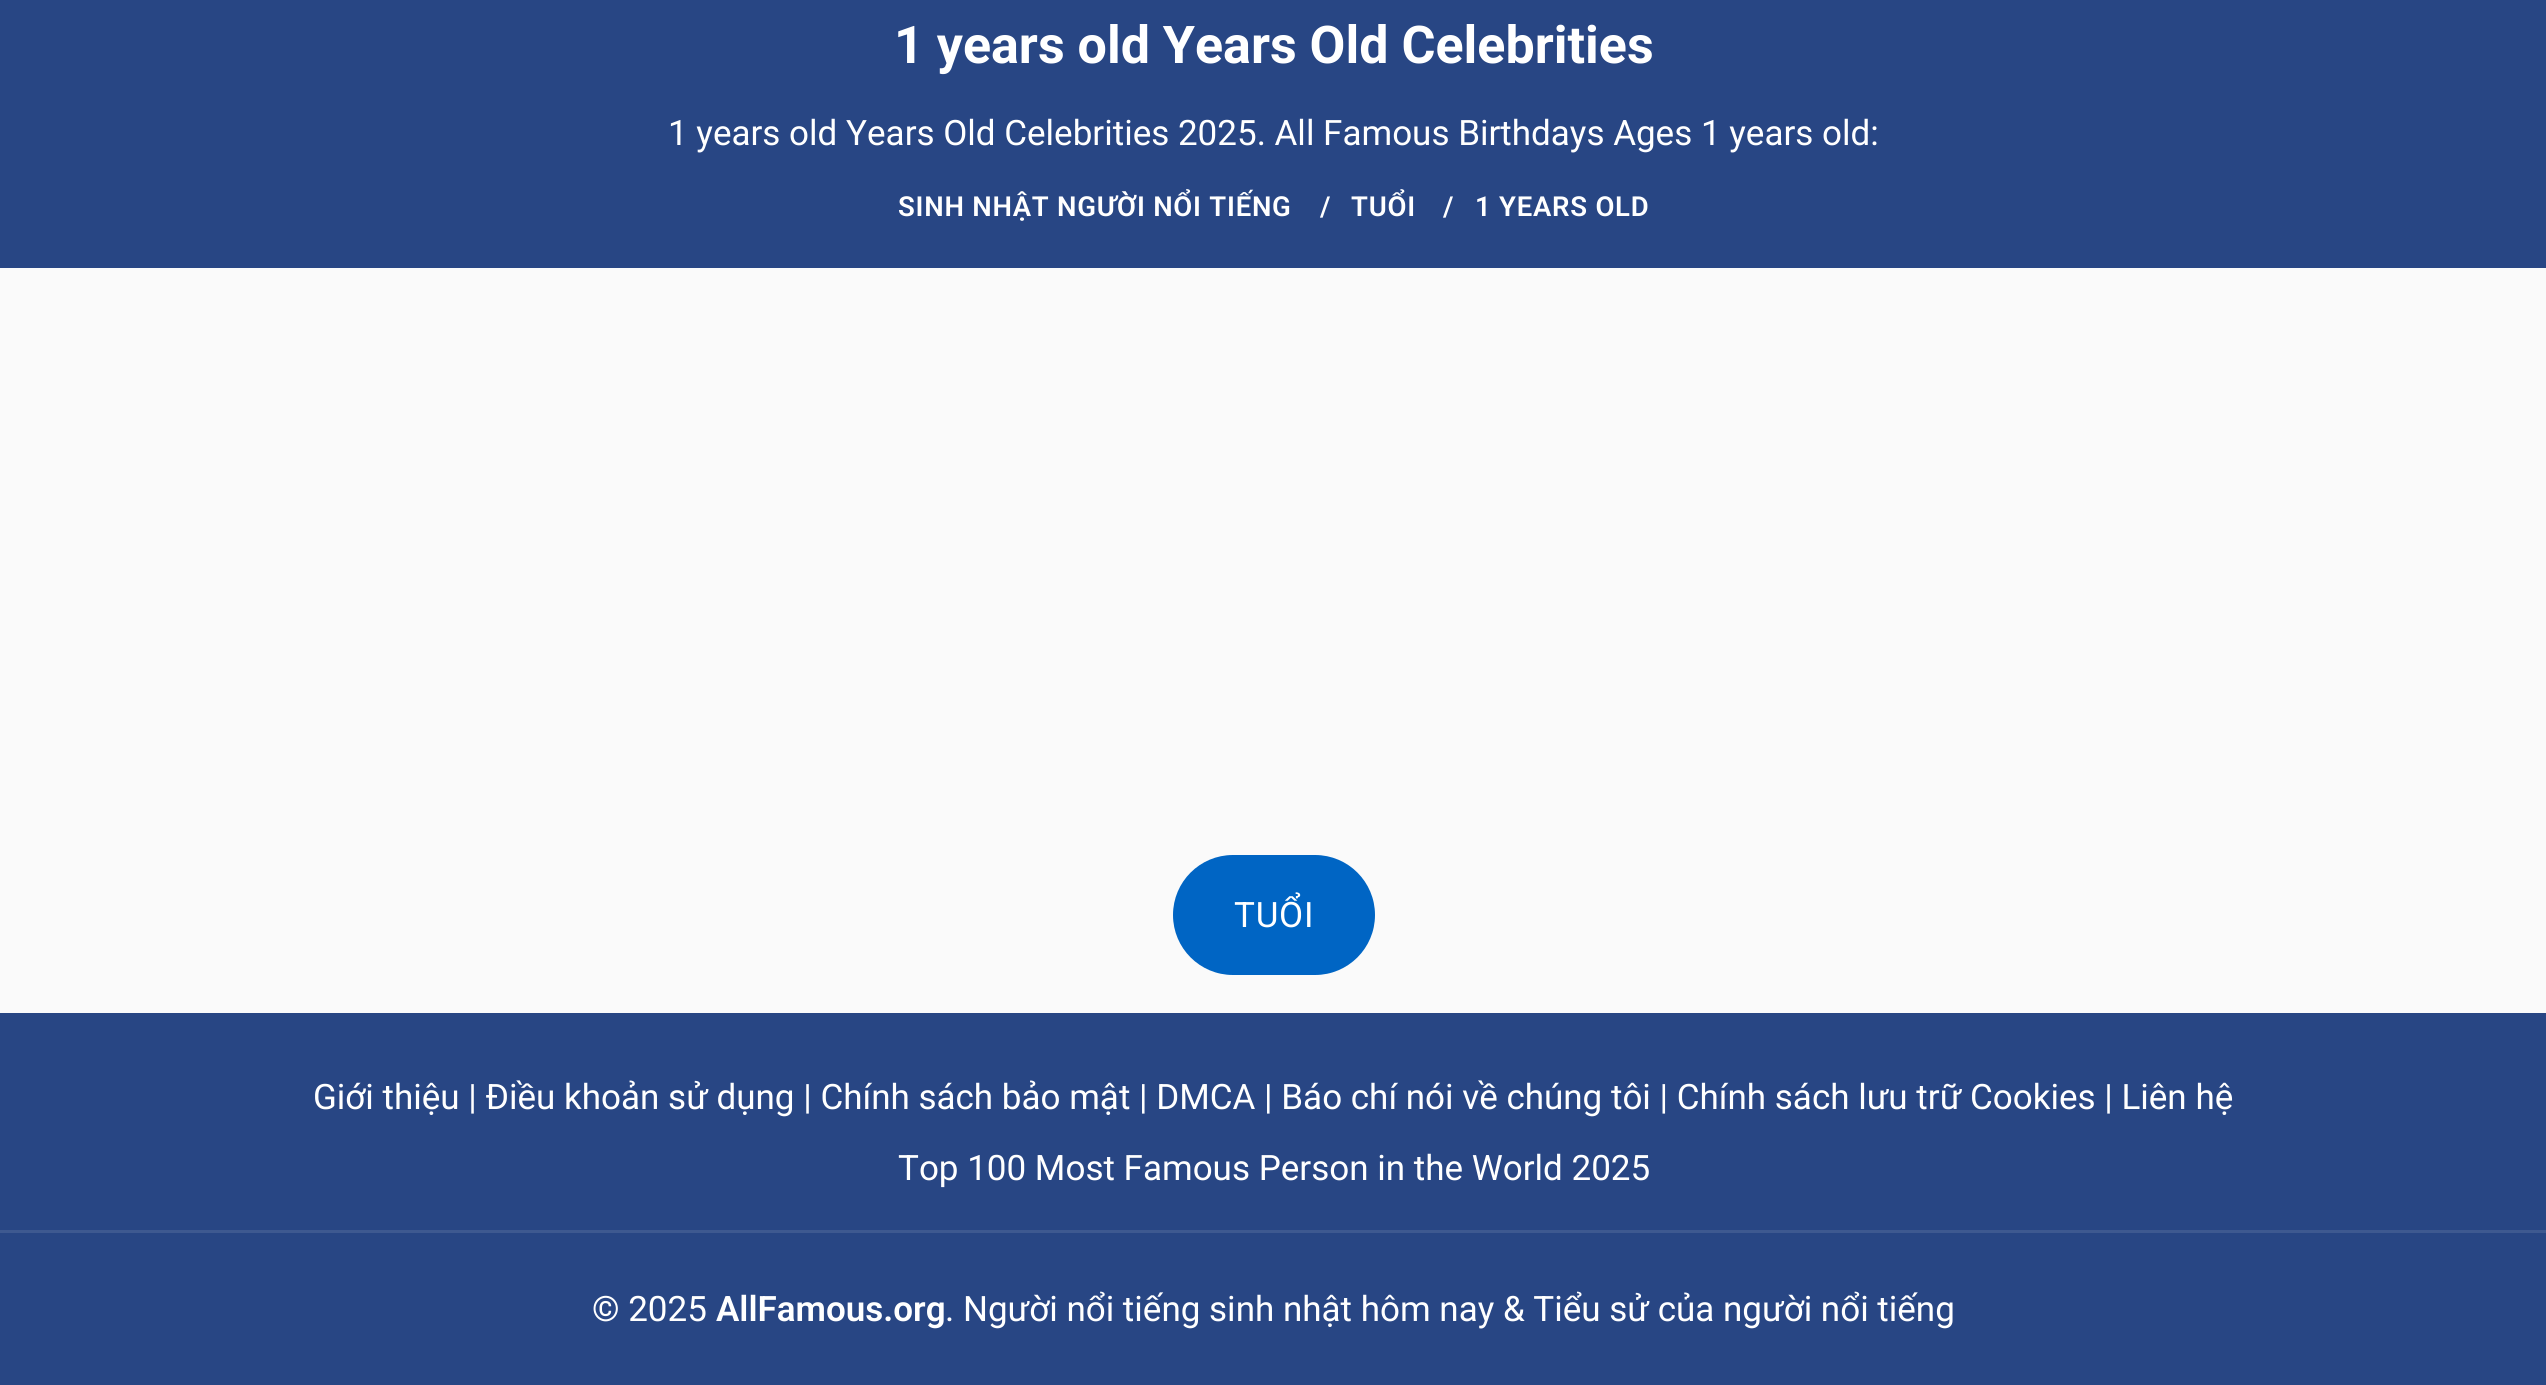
#include <cairo.h>
#include <math.h>
#include <stddef.h>

static cairo_t *ctx;

static void use_color(int r, int g, int b) {
    cairo_set_source_rgb(ctx, r / 255.0, g / 255.0, b / 255.0);
}

static void spaced_text(double x, double y, const char *s, double letter, double word) {
    cairo_move_to(ctx, x, y);
    while (*s) {
        char ch[5] = {0};
        int n = 0;
        do ch[n++] = *s++; while ((*s & 0xC0) == 0x80);
        cairo_show_text(ctx, ch);
        cairo_rel_move_to(ctx, letter + word * (*ch == ' '), 0);
    }
}

static void round_rect(double x, double y, double w, double h, double r) {
    cairo_new_sub_path(ctx);
    cairo_arc(ctx, x + w - r, y + h - r, r, 0, M_PI / 2);
    cairo_arc(ctx, x + r, y + h - r, r, M_PI / 2, M_PI);
    cairo_arc(ctx, x + r, y + r, r, M_PI, 1.5 * M_PI);
    cairo_arc(ctx, x + w - r, y + r, r, 1.5 * M_PI, 2 * M_PI);
    cairo_close_path(ctx);
}

int main(void) {
    cairo_surface_t *surface = cairo_image_surface_create(CAIRO_FORMAT_RGB24, 2546, 1385);
    ctx = cairo_create(surface);
    cairo_font_options_t *options = cairo_font_options_create();
    cairo_font_options_set_hint_metrics(options, CAIRO_HINT_METRICS_OFF);
    cairo_font_options_set_hint_style(options, CAIRO_HINT_STYLE_NONE);
    cairo_set_font_options(ctx, options);
    cairo_set_miter_limit(ctx, 4);
    use_color(250, 250, 250);
    cairo_paint(ctx);
    use_color(40, 70, 132);
    cairo_rectangle(ctx, 0, 0, 2546, 268);
    cairo_fill(ctx);
    cairo_select_font_face(ctx, "Roboto", CAIRO_FONT_SLANT_NORMAL, CAIRO_FONT_WEIGHT_BOLD);
    cairo_set_font_size(ctx, 52);
    use_color(255, 255, 255);
    cairo_move_to(ctx, 894, 63);
    cairo_show_text(ctx, "1 years old Years Old Celebrities");
    cairo_select_font_face(ctx, "Roboto", CAIRO_FONT_SLANT_NORMAL, CAIRO_FONT_WEIGHT_NORMAL);
    cairo_set_font_size(ctx, 35);
    cairo_move_to(ctx, 668, 145);
    cairo_show_text(ctx, "1 years old Years Old Celebrities 2025. All Famous Birthdays Ages 1 years old:");
    cairo_select_font_face(ctx, "Roboto SemiBold", CAIRO_FONT_SLANT_NORMAL, CAIRO_FONT_WEIGHT_NORMAL);
    cairo_set_font_size(ctx, 27.5);
    spaced_text(898, 216, "SINH NHẬT NGƯỜI NỔI TIẾNG", 0.75, 0);
    spaced_text(1320, 216, "/", 0.75, 0);
    spaced_text(1351, 216, "TUỔI", 0.75, 0);
    spaced_text(1443, 216, "/", 0.75, 0);
    spaced_text(1475, 216, "1 YEARS OLD", 0.75, 0);
    use_color(0, 101, 196);
    round_rect(1173, 855, 202, 120, 60);
    cairo_fill(ctx);
    cairo_select_font_face(ctx, "Roboto", CAIRO_FONT_SLANT_NORMAL, CAIRO_FONT_WEIGHT_NORMAL);
    cairo_set_font_size(ctx, 35);
    use_color(255, 255, 255);
    spaced_text(1234, 927, "TUỔI", 0.75, 0);
    use_color(40, 70, 132);
    cairo_rectangle(ctx, 0, 1013, 2546, 372);
    cairo_fill(ctx);
    use_color(255, 255, 255);
    cairo_move_to(ctx, 313, 1109);
    cairo_show_text(ctx, "Giới thiệu | Điều khoản sử dụng | Chính sách bảo mật | DMCA | Báo chí nói về chúng tôi | Chính sách lưu trữ Cookies | Liên hệ");
    cairo_move_to(ctx, 898, 1180);
    cairo_show_text(ctx, "Top 100 Most Famous Person in the World 2025");
    use_color(62, 89, 144);
    cairo_rectangle(ctx, 0, 1230, 2546, 3);
    cairo_fill(ctx);
    use_color(255, 255, 255);
    cairo_move_to(ctx, 592, 1321);
    cairo_show_text(ctx, "© 2025");
    cairo_select_font_face(ctx, "Roboto SemiBold", CAIRO_FONT_SLANT_NORMAL, CAIRO_FONT_WEIGHT_NORMAL);
    cairo_move_to(ctx, 716, 1321);
    cairo_show_text(ctx, "AllFamous.org");
    cairo_select_font_face(ctx, "Roboto", CAIRO_FONT_SLANT_NORMAL, CAIRO_FONT_WEIGHT_NORMAL);
    cairo_move_to(ctx, 945, 1321);
    cairo_show_text(ctx, ". Người nổi tiếng sinh nhật hôm nay & Tiểu sử của người nổi tiếng");
    cairo_surface_write_to_png(surface, "result.png");
    cairo_font_options_destroy(options);
    cairo_destroy(ctx);
    cairo_surface_destroy(surface);
    return 0;
}
